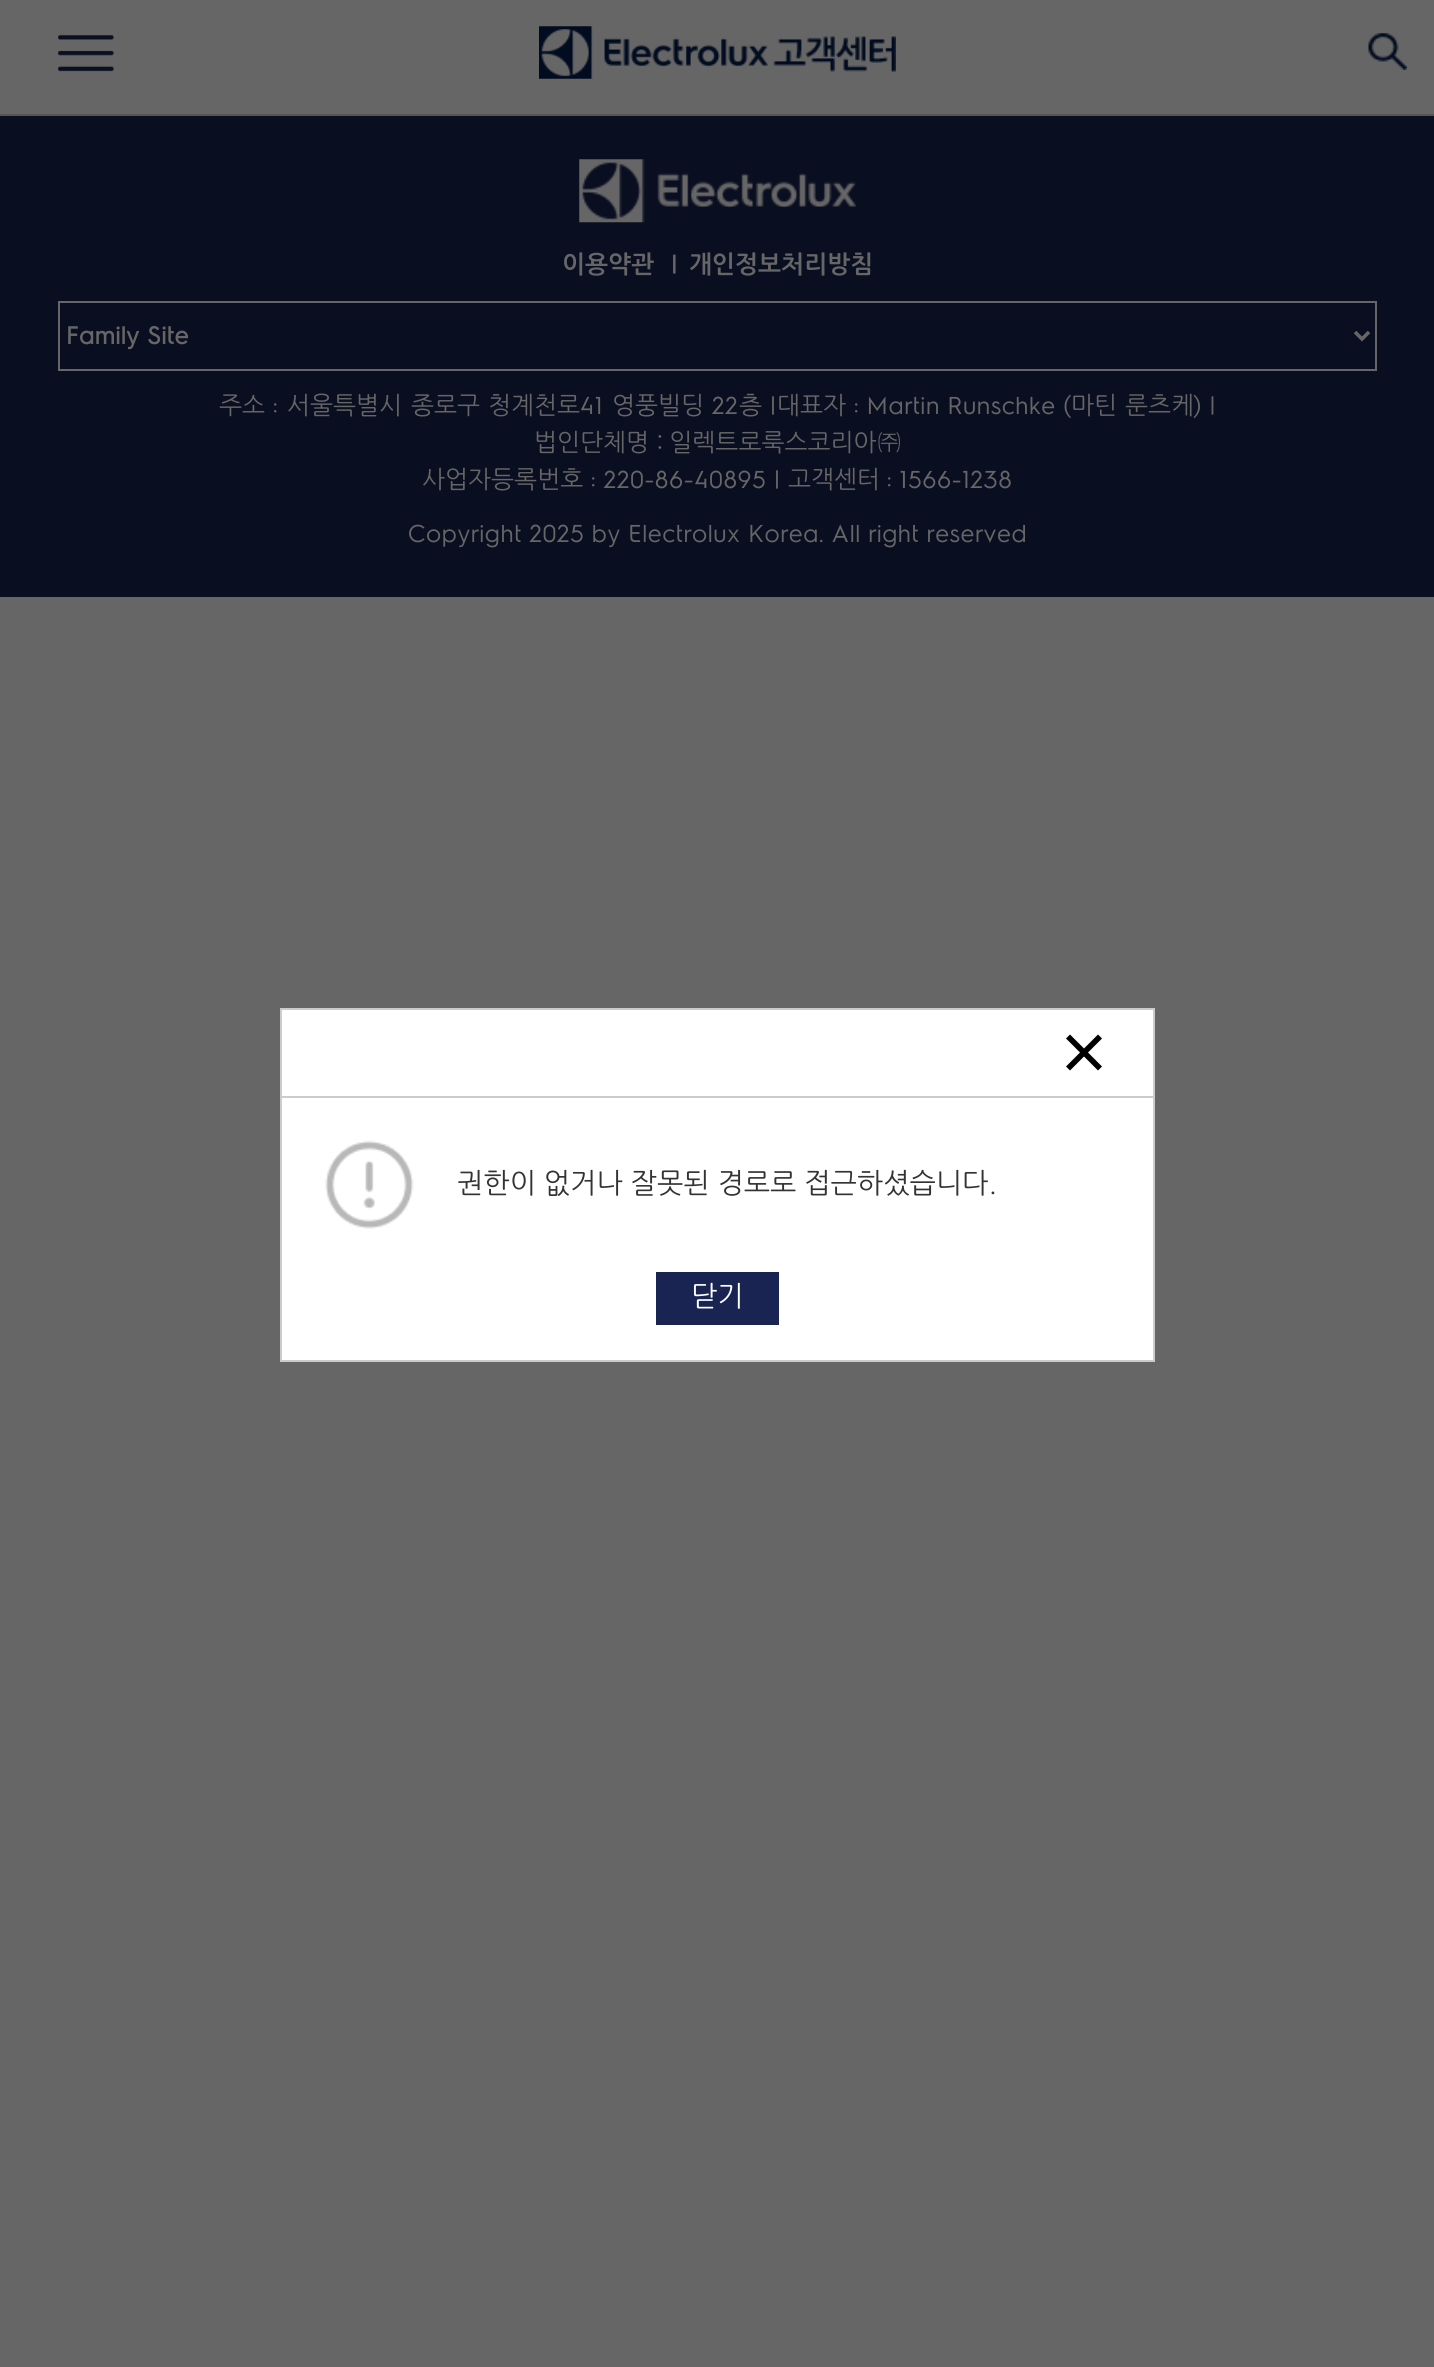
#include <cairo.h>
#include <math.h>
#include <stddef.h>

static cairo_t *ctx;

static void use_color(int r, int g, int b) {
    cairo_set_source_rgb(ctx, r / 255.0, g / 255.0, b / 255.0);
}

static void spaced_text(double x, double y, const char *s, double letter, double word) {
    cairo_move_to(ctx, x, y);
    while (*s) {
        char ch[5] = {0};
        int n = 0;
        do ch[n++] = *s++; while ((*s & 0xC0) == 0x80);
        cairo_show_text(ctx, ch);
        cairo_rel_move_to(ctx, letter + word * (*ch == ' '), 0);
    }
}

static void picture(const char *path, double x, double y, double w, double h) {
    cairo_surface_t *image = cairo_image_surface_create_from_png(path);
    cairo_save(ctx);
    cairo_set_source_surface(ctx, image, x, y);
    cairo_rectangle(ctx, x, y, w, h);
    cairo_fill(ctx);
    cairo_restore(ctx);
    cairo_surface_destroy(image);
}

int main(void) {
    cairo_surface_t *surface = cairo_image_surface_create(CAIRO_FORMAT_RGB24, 1434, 2367);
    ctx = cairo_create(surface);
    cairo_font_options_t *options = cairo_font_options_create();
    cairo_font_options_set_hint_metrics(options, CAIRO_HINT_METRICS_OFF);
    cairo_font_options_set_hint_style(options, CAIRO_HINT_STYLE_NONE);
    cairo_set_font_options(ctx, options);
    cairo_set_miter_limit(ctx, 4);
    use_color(102, 102, 102);
    cairo_paint(ctx);
    use_color(85, 85, 85);
    cairo_rectangle(ctx, 0, 114, 1434, 2);
    cairo_fill(ctx);
    picture("img1.png", 58, 35, 56, 37);
    picture("img2.png", 539, 26, 357, 53);
    picture("img3.png", 1368, 33, 39, 37);
    use_color(10, 14, 33);
    cairo_rectangle(ctx, 0, 116, 1434, 481);
    cairo_fill(ctx);
    picture("img4.png", 579, 159, 277, 64);
    cairo_select_font_face(ctx, "NanumGothic", CAIRO_FONT_SLANT_NORMAL, CAIRO_FONT_WEIGHT_BOLD);
    cairo_set_font_size(ctx, 24.5);
    use_color(102, 102, 102);
    cairo_move_to(ctx, 562, 273);
    cairo_show_text(ctx, "이용약관");
    cairo_select_font_face(ctx, "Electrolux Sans", CAIRO_FONT_SLANT_NORMAL, CAIRO_FONT_WEIGHT_BOLD);
    cairo_move_to(ctx, 671, 273);
    cairo_show_text(ctx, "|");
    cairo_select_font_face(ctx, "NanumGothic", CAIRO_FONT_SLANT_NORMAL, CAIRO_FONT_WEIGHT_BOLD);
    cairo_move_to(ctx, 689, 273);
    cairo_show_text(ctx, "개인정보처리방침");
    cairo_rectangle(ctx, 59, 302, 1317, 68);
    cairo_stroke(ctx);
    cairo_new_path(ctx);
    cairo_move_to(ctx, 1355, 332);
    cairo_line_to(ctx, 1362, 339);
    cairo_line_to(ctx, 1369, 332);
    cairo_set_line_width(ctx, 3.5);
    cairo_stroke(ctx);
    cairo_select_font_face(ctx, "Electrolux Sans", CAIRO_FONT_SLANT_NORMAL, CAIRO_FONT_WEIGHT_BOLD);
    cairo_move_to(ctx, 66, 344);
    cairo_show_text(ctx, "Family Site");
    cairo_select_font_face(ctx, "NanumGothic", CAIRO_FONT_SLANT_NORMAL, CAIRO_FONT_WEIGHT_NORMAL);
    cairo_move_to(ctx, 219, 414);
    cairo_show_text(ctx, "주소");
    cairo_select_font_face(ctx, "Electrolux Sans", CAIRO_FONT_SLANT_NORMAL, CAIRO_FONT_WEIGHT_NORMAL);
    cairo_move_to(ctx, 273, 414);
    cairo_show_text(ctx, ":");
    cairo_select_font_face(ctx, "NanumGothic", CAIRO_FONT_SLANT_NORMAL, CAIRO_FONT_WEIGHT_NORMAL);
    cairo_move_to(ctx, 287, 414);
    cairo_show_text(ctx, "서울특별시");
    cairo_move_to(ctx, 411, 414);
    cairo_show_text(ctx, "종로구");
    cairo_move_to(ctx, 488, 414);
    cairo_show_text(ctx, "청계천로");
    cairo_select_font_face(ctx, "Electrolux Sans", CAIRO_FONT_SLANT_NORMAL, CAIRO_FONT_WEIGHT_NORMAL);
    cairo_move_to(ctx, 580, 414);
    cairo_show_text(ctx, "41");
    cairo_select_font_face(ctx, "NanumGothic", CAIRO_FONT_SLANT_NORMAL, CAIRO_FONT_WEIGHT_NORMAL);
    cairo_move_to(ctx, 612, 414);
    cairo_show_text(ctx, "영풍빌딩");
    cairo_select_font_face(ctx, "Electrolux Sans", CAIRO_FONT_SLANT_NORMAL, CAIRO_FONT_WEIGHT_NORMAL);
    cairo_move_to(ctx, 712, 414);
    cairo_show_text(ctx, "22");
    cairo_select_font_face(ctx, "NanumGothic", CAIRO_FONT_SLANT_NORMAL, CAIRO_FONT_WEIGHT_NORMAL);
    cairo_move_to(ctx, 739, 414);
    cairo_show_text(ctx, "층");
    cairo_select_font_face(ctx, "Electrolux Sans", CAIRO_FONT_SLANT_NORMAL, CAIRO_FONT_WEIGHT_NORMAL);
    cairo_move_to(ctx, 770, 414);
    cairo_show_text(ctx, "|");
    cairo_select_font_face(ctx, "NanumGothic", CAIRO_FONT_SLANT_NORMAL, CAIRO_FONT_WEIGHT_NORMAL);
    cairo_move_to(ctx, 777, 414);
    cairo_show_text(ctx, "대표자");
    cairo_select_font_face(ctx, "Electrolux Sans", CAIRO_FONT_SLANT_NORMAL, CAIRO_FONT_WEIGHT_NORMAL);
    cairo_move_to(ctx, 854, 414);
    cairo_show_text(ctx, ": Martin Runschke (");
    cairo_select_font_face(ctx, "NanumGothic", CAIRO_FONT_SLANT_NORMAL, CAIRO_FONT_WEIGHT_NORMAL);
    cairo_move_to(ctx, 1071, 414);
    cairo_show_text(ctx, "마틴");
    cairo_move_to(ctx, 1125, 414);
    cairo_show_text(ctx, "룬츠케");
    cairo_select_font_face(ctx, "Electrolux Sans", CAIRO_FONT_SLANT_NORMAL, CAIRO_FONT_WEIGHT_NORMAL);
    cairo_move_to(ctx, 1194, 414);
    cairo_show_text(ctx, ") |");
    cairo_select_font_face(ctx, "NanumGothic", CAIRO_FONT_SLANT_NORMAL, CAIRO_FONT_WEIGHT_NORMAL);
    cairo_move_to(ctx, 534, 451);
    cairo_show_text(ctx, "법인단체명");
    spaced_text(656, 451, ": 일렉트로룩스코리아", 0, -1);
    cairo_select_font_face(ctx, "Dotum", CAIRO_FONT_SLANT_NORMAL, CAIRO_FONT_WEIGHT_NORMAL);
    cairo_move_to(ctx, 877, 451);
    cairo_show_text(ctx, "㈜");
    cairo_select_font_face(ctx, "NanumGothic", CAIRO_FONT_SLANT_NORMAL, CAIRO_FONT_WEIGHT_NORMAL);
    cairo_move_to(ctx, 422, 488);
    cairo_show_text(ctx, "사업자등록번호");
    cairo_select_font_face(ctx, "Electrolux Sans", CAIRO_FONT_SLANT_NORMAL, CAIRO_FONT_WEIGHT_NORMAL);
    cairo_move_to(ctx, 591, 488);
    cairo_show_text(ctx, ": 220-86-40895 |");
    cairo_select_font_face(ctx, "NanumGothic", CAIRO_FONT_SLANT_NORMAL, CAIRO_FONT_WEIGHT_NORMAL);
    cairo_move_to(ctx, 788, 488);
    cairo_show_text(ctx, "고객센터");
    cairo_select_font_face(ctx, "Electrolux Sans", CAIRO_FONT_SLANT_NORMAL, CAIRO_FONT_WEIGHT_NORMAL);
    cairo_move_to(ctx, 887, 488);
    cairo_show_text(ctx, ": 1566-1238");
    cairo_move_to(ctx, 408, 542);
    cairo_show_text(ctx, "Copyright 2025 by Electrolux Korea. All right reserved");
    use_color(255, 255, 255);
    cairo_rectangle(ctx, 281, 1009, 873, 352);
    cairo_fill_preserve(ctx);
    use_color(204, 204, 204);
    cairo_set_line_width(ctx, 2);
    cairo_stroke(ctx);
    cairo_rectangle(ctx, 282, 1096, 871, 2);
    cairo_fill(ctx);
    use_color(0, 0, 0);
    cairo_new_path(ctx);
    cairo_move_to(ctx, 1084, 1048.5);
    cairo_line_to(ctx, 1098, 1034.5);
    cairo_line_to(ctx, 1102, 1038.5);
    cairo_line_to(ctx, 1088, 1052.5);
    cairo_line_to(ctx, 1102, 1066.5);
    cairo_line_to(ctx, 1098, 1070.5);
    cairo_line_to(ctx, 1084, 1056.5);
    cairo_line_to(ctx, 1070, 1070.5);
    cairo_line_to(ctx, 1066, 1066.5);
    cairo_line_to(ctx, 1080, 1052.5);
    cairo_line_to(ctx, 1066, 1038.5);
    cairo_line_to(ctx, 1070, 1034.5);
    cairo_close_path(ctx);
    cairo_fill(ctx);
    picture("img5.png", 325, 1140, 89, 89);
    cairo_select_font_face(ctx, "NanumGothic", CAIRO_FONT_SLANT_NORMAL, CAIRO_FONT_WEIGHT_NORMAL);
    cairo_set_font_size(ctx, 28);
    use_color(51, 51, 51);
    cairo_move_to(ctx, 457, 1193);
    cairo_show_text(ctx, "권한이 없거나 잘못된 경로로 접근하셨습니다.");
    use_color(25, 36, 82);
    cairo_rectangle(ctx, 656, 1272, 123, 53);
    cairo_fill(ctx);
    use_color(255, 255, 255);
    cairo_move_to(ctx, 691, 1306);
    cairo_show_text(ctx, "닫기");
    cairo_surface_write_to_png(surface, "result.png");
    cairo_font_options_destroy(options);
    cairo_destroy(ctx);
    cairo_surface_destroy(surface);
    return 0;
}
